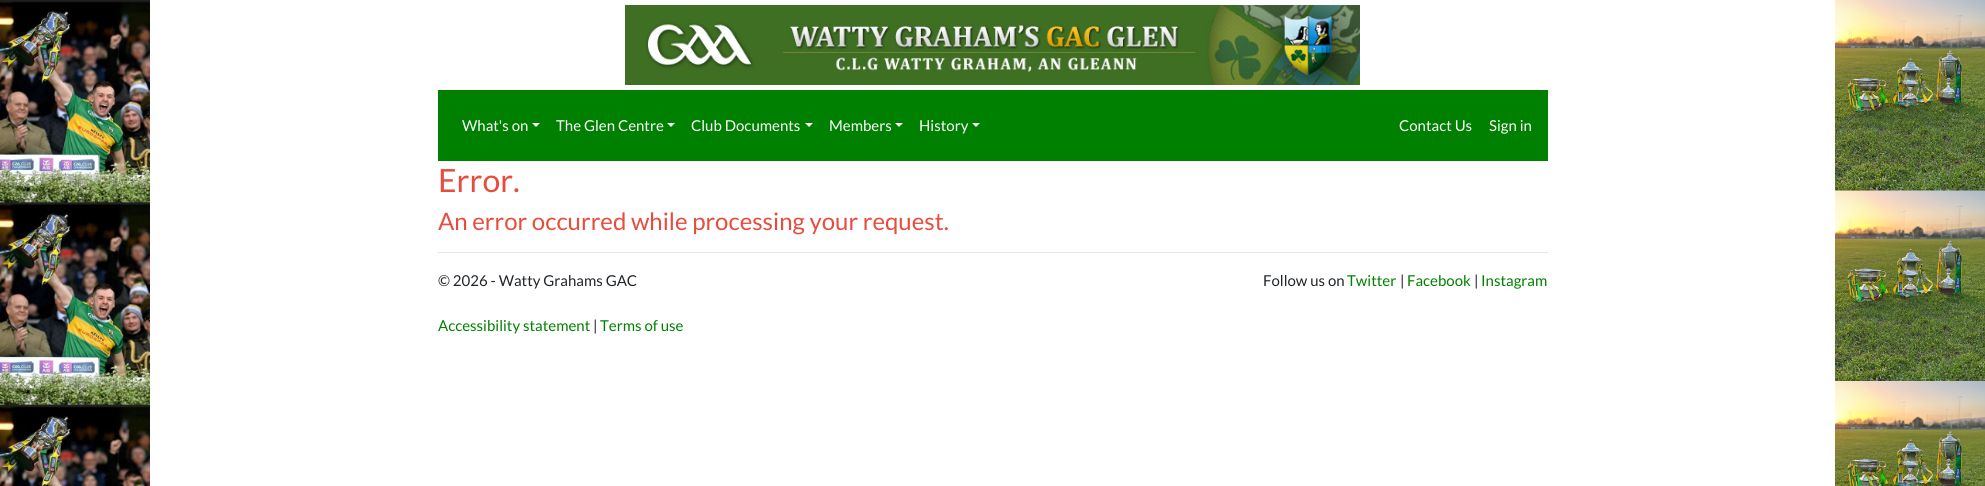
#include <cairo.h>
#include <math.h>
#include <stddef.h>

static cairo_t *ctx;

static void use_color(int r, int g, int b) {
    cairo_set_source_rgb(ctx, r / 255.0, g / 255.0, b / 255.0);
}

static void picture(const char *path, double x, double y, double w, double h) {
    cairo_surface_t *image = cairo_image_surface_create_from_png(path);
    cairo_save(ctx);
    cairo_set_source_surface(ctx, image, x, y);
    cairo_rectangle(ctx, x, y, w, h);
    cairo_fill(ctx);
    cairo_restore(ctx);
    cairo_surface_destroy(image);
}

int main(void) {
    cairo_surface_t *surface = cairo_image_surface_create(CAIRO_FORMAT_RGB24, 1985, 486);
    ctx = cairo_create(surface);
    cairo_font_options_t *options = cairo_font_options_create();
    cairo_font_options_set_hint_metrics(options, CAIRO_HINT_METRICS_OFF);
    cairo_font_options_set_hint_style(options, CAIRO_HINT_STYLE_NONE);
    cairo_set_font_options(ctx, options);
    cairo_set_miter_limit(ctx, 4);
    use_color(255, 255, 255);
    cairo_paint(ctx);
    picture("img1.png", 0, 0, 1985, 486);
    picture("img2.png", 625, 5, 735, 80);
    use_color(0, 128, 0);
    cairo_rectangle(ctx, 438, 90, 1110, 71);
    cairo_fill(ctx);
    cairo_select_font_face(ctx, "Lato", CAIRO_FONT_SLANT_NORMAL, CAIRO_FONT_WEIGHT_NORMAL);
    cairo_set_font_size(ctx, 15);
    use_color(255, 255, 255);
    cairo_move_to(ctx, 462, 131);
    cairo_show_text(ctx, "What's on");
    cairo_new_path(ctx);
    cairo_move_to(ctx, 532, 123);
    cairo_line_to(ctx, 540, 123);
    cairo_line_to(ctx, 536, 127);
    cairo_close_path(ctx);
    cairo_fill(ctx);
    cairo_move_to(ctx, 556, 131);
    cairo_show_text(ctx, "The Glen Centre");
    cairo_new_path(ctx);
    cairo_move_to(ctx, 667, 123);
    cairo_line_to(ctx, 675, 123);
    cairo_line_to(ctx, 671, 127);
    cairo_close_path(ctx);
    cairo_fill(ctx);
    cairo_move_to(ctx, 691, 131);
    cairo_show_text(ctx, "Club Documents");
    cairo_new_path(ctx);
    cairo_move_to(ctx, 805, 123);
    cairo_line_to(ctx, 813, 123);
    cairo_line_to(ctx, 809, 127);
    cairo_close_path(ctx);
    cairo_fill(ctx);
    cairo_move_to(ctx, 829, 131);
    cairo_show_text(ctx, "Members");
    cairo_new_path(ctx);
    cairo_move_to(ctx, 895, 123);
    cairo_line_to(ctx, 903, 123);
    cairo_line_to(ctx, 899, 127);
    cairo_close_path(ctx);
    cairo_fill(ctx);
    cairo_move_to(ctx, 919, 131);
    cairo_show_text(ctx, "History");
    cairo_new_path(ctx);
    cairo_move_to(ctx, 972, 123);
    cairo_line_to(ctx, 980, 123);
    cairo_line_to(ctx, 976, 127);
    cairo_close_path(ctx);
    cairo_fill(ctx);
    cairo_move_to(ctx, 1399, 131);
    cairo_show_text(ctx, "Contact Us");
    cairo_move_to(ctx, 1489, 131);
    cairo_show_text(ctx, "Sign in");
    cairo_set_font_size(ctx, 32);
    use_color(231, 76, 60);
    cairo_move_to(ctx, 438, 192);
    cairo_show_text(ctx, "Error.");
    cairo_set_font_size(ctx, 24);
    cairo_move_to(ctx, 438, 230);
    cairo_show_text(ctx, "An error occurred while processing your request.");
    use_color(230, 230, 230);
    cairo_rectangle(ctx, 438, 252, 1110, 1);
    cairo_fill(ctx);
    cairo_set_font_size(ctx, 15);
    use_color(33, 37, 41);
    cairo_move_to(ctx, 438, 286);
    cairo_show_text(ctx, "© 2026 - Watty Grahams GAC");
    cairo_move_to(ctx, 1263, 286);
    cairo_show_text(ctx, "Follow us on");
    use_color(0, 128, 0);
    cairo_move_to(ctx, 1347, 286);
    cairo_show_text(ctx, "Twitter");
    use_color(33, 37, 41);
    cairo_move_to(ctx, 1400, 286);
    cairo_show_text(ctx, "|");
    use_color(0, 128, 0);
    cairo_move_to(ctx, 1407, 286);
    cairo_show_text(ctx, "Facebook");
    use_color(33, 37, 41);
    cairo_move_to(ctx, 1474, 286);
    cairo_show_text(ctx, "|");
    use_color(0, 128, 0);
    cairo_move_to(ctx, 1481, 286);
    cairo_show_text(ctx, "Instagram");
    cairo_move_to(ctx, 438, 331);
    cairo_show_text(ctx, "Accessibility statement");
    use_color(33, 37, 41);
    cairo_move_to(ctx, 593, 331);
    cairo_show_text(ctx, "|");
    use_color(0, 128, 0);
    cairo_move_to(ctx, 600, 331);
    cairo_show_text(ctx, "Terms of use");
    cairo_surface_write_to_png(surface, "result.png");
    cairo_font_options_destroy(options);
    cairo_destroy(ctx);
    cairo_surface_destroy(surface);
    return 0;
}
